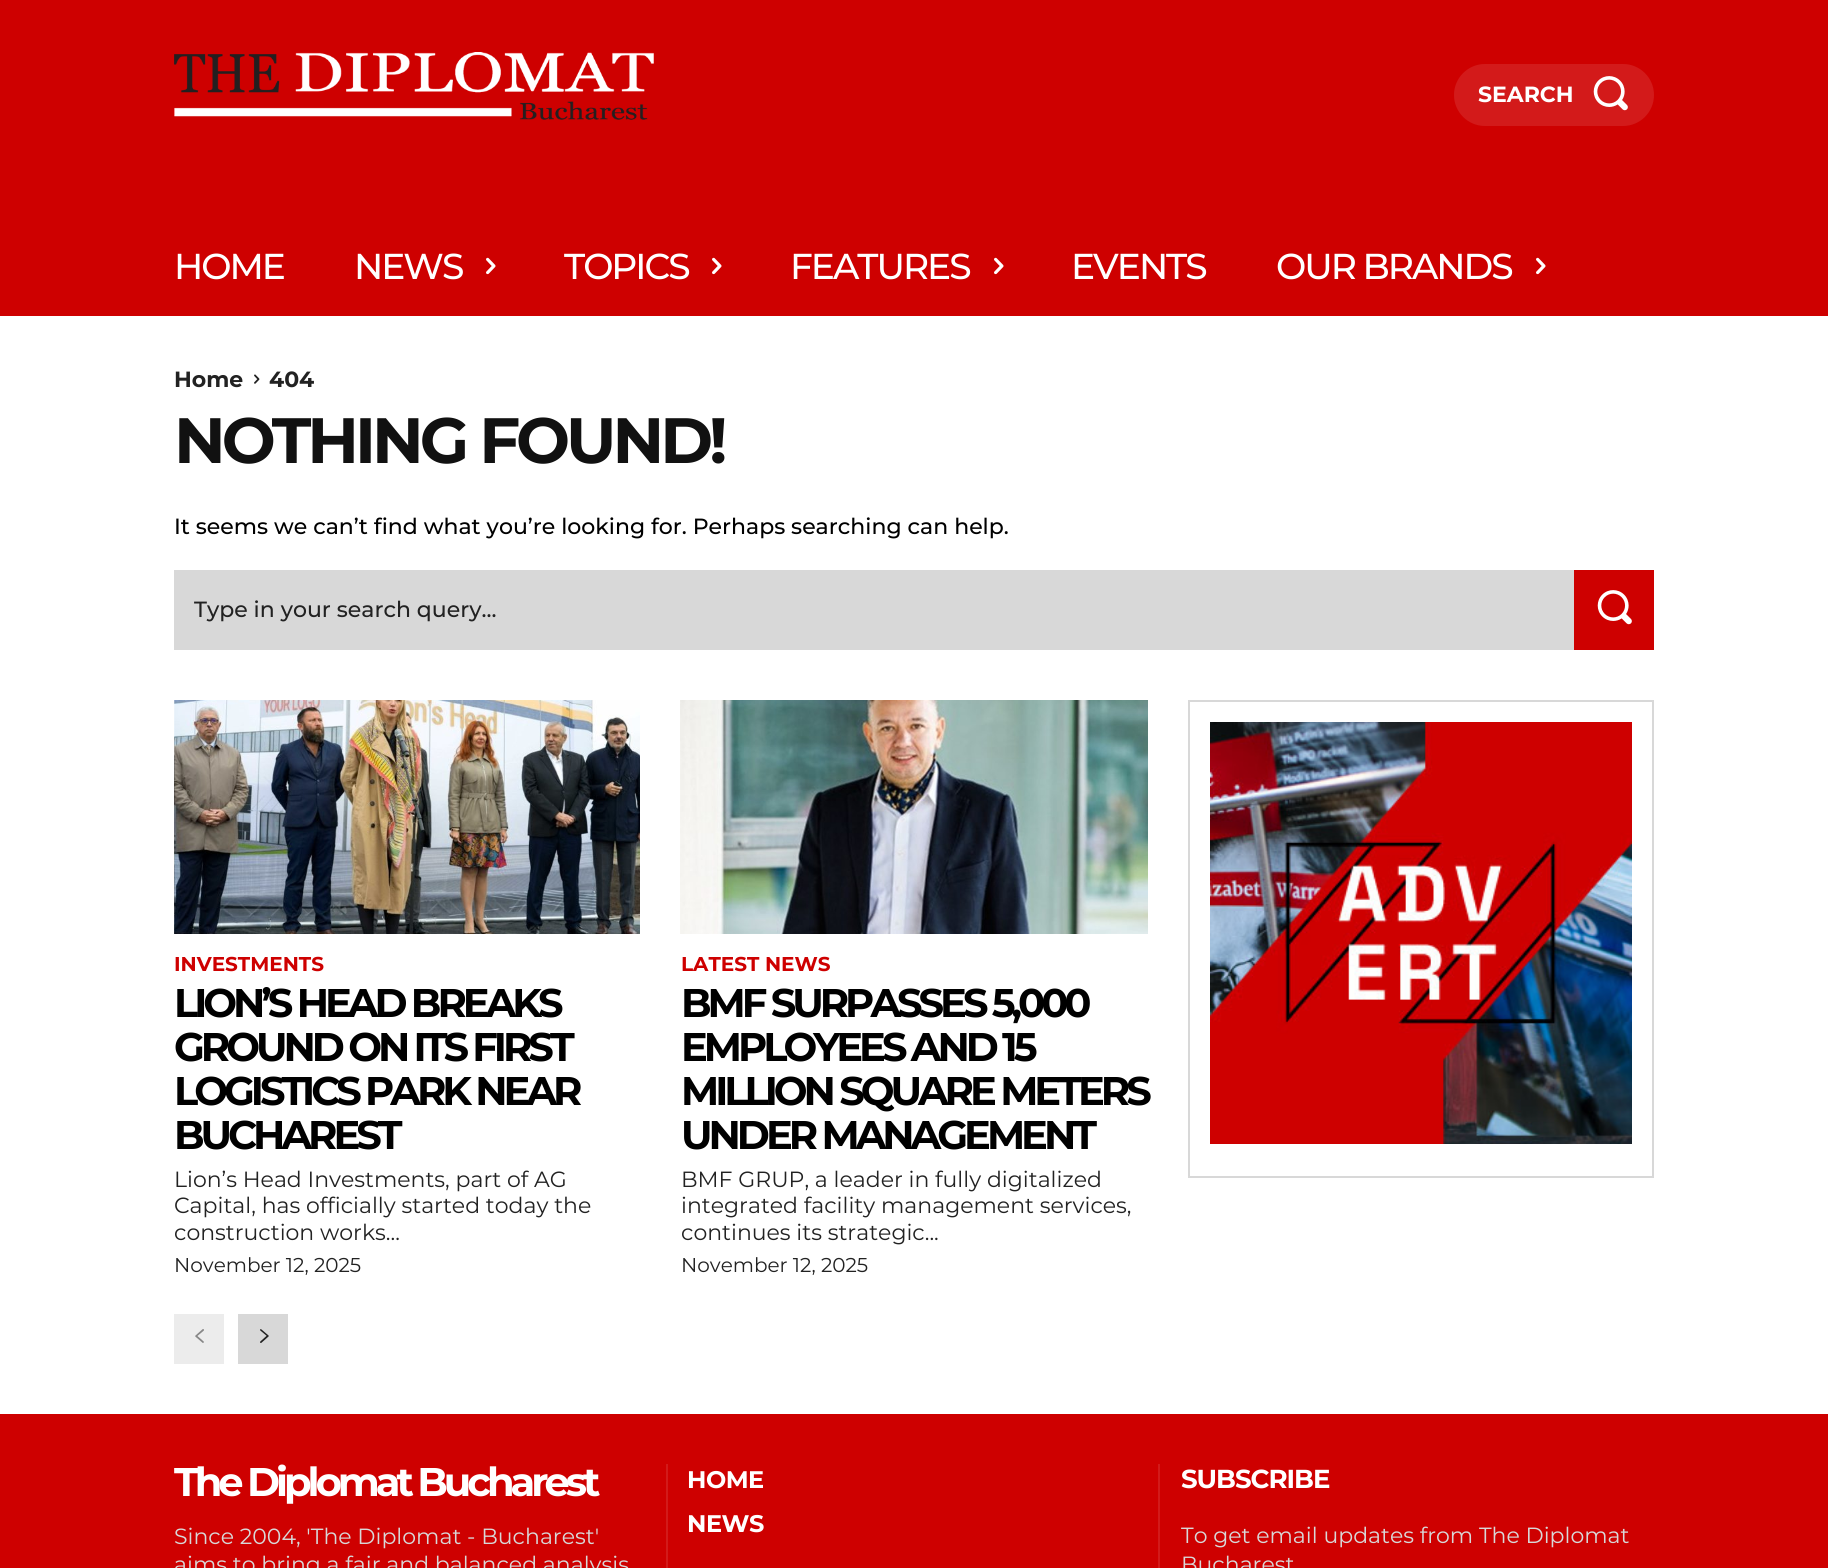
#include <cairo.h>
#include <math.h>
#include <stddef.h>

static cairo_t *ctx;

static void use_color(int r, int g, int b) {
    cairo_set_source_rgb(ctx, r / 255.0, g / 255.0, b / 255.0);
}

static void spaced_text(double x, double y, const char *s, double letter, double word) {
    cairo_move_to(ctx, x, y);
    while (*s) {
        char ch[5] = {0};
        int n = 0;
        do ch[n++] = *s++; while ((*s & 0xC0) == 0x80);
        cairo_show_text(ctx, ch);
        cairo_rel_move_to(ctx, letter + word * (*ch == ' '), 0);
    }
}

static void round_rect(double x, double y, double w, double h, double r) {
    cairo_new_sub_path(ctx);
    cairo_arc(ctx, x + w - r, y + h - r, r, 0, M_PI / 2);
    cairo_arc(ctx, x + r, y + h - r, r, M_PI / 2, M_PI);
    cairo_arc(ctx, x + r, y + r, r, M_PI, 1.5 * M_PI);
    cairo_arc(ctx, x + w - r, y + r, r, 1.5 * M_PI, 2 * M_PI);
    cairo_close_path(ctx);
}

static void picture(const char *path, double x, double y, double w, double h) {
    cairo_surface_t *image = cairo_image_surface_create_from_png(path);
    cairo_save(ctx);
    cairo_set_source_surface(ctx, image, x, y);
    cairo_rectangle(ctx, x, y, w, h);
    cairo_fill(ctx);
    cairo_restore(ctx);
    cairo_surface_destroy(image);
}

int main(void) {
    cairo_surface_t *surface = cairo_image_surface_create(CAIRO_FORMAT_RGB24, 1828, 1568);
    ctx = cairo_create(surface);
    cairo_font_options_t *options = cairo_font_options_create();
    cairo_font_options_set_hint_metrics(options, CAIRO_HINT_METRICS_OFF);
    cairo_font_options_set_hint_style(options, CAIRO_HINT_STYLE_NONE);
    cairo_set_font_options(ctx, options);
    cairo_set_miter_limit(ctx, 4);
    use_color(255, 255, 255);
    cairo_paint(ctx);
    use_color(206, 0, 0);
    cairo_rectangle(ctx, 0, 0, 1828, 316);
    cairo_fill(ctx);
    picture("img1.png", 174, 52, 480, 68);
    use_color(211, 26, 26);
    round_rect(1454, 64, 200, 62, 31);
    cairo_fill(ctx);
    cairo_select_font_face(ctx, "Montserrat", CAIRO_FONT_SLANT_NORMAL, CAIRO_FONT_WEIGHT_BOLD);
    cairo_set_font_size(ctx, 22);
    use_color(255, 255, 255);
    cairo_move_to(ctx, 1478, 102);
    cairo_show_text(ctx, "SEARCH");
    picture("img2.png", 1593, 76, 35, 35);
    cairo_select_font_face(ctx, "Montserrat Medium", CAIRO_FONT_SLANT_NORMAL, CAIRO_FONT_WEIGHT_NORMAL);
    cairo_set_font_size(ctx, 36);
    spaced_text(174, 279, "HOME", -2, 0);
    spaced_text(354, 279, "NEWS", -2, 0);
    picture("img3.png", 486, 257, 10, 18);
    spaced_text(564, 279, "TOPICS", -2, 0);
    picture("img3.png", 712, 257, 10, 18);
    spaced_text(790, 279, "FEATURES", -2, 0);
    picture("img3.png", 994, 257, 10, 18);
    spaced_text(1071, 279, "EVENTS", -2, 0);
    spaced_text(1276, 279, "OUR BRANDS", -2, 0);
    picture("img3.png", 1536, 257, 10, 18);
    cairo_select_font_face(ctx, "Montserrat", CAIRO_FONT_SLANT_NORMAL, CAIRO_FONT_WEIGHT_BOLD);
    cairo_set_font_size(ctx, 22);
    use_color(34, 34, 34);
    cairo_move_to(ctx, 174, 387);
    cairo_show_text(ctx, "Home");
    picture("img4.png", 254, 374, 6, 10);
    cairo_move_to(ctx, 269, 387);
    cairo_show_text(ctx, "404");
    cairo_set_font_size(ctx, 64);
    use_color(17, 17, 17);
    spaced_text(174, 463, "NOTHING FOUND!", -4, 0);
    cairo_select_font_face(ctx, "Montserrat Medium", CAIRO_FONT_SLANT_NORMAL, CAIRO_FONT_WEIGHT_NORMAL);
    cairo_set_font_size(ctx, 22);
    use_color(0, 0, 0);
    cairo_move_to(ctx, 174, 534);
    cairo_show_text(ctx, "It seems we can’t find what you’re looking for. Perhaps searching can help.");
    use_color(216, 216, 216);
    cairo_rectangle(ctx, 174, 570, 1400, 80);
    cairo_fill(ctx);
    use_color(34, 34, 34);
    cairo_move_to(ctx, 194, 617);
    cairo_show_text(ctx, "Type in your search query...");
    use_color(206, 0, 0);
    cairo_rectangle(ctx, 1574, 570, 80, 80);
    cairo_fill(ctx);
    picture("img5.png", 1597, 590, 35, 35);
    picture("img6.png", 174, 700, 466, 234);
    cairo_select_font_face(ctx, "Montserrat", CAIRO_FONT_SLANT_NORMAL, CAIRO_FONT_WEIGHT_BOLD);
    cairo_set_font_size(ctx, 20);
    cairo_move_to(ctx, 174, 971);
    cairo_show_text(ctx, "INVESTMENTS");
    cairo_set_font_size(ctx, 40);
    use_color(0, 0, 0);
    spaced_text(174, 1017, "LION’S HEAD BREAKS", -4, 0);
    spaced_text(174, 1061, "GROUND ON ITS FIRST", -4, 0);
    spaced_text(174, 1105, "LOGISTICS PARK NEAR", -4, 0);
    spaced_text(174, 1149, "BUCHAREST", -4, 0);
    cairo_select_font_face(ctx, "Montserrat", CAIRO_FONT_SLANT_NORMAL, CAIRO_FONT_WEIGHT_NORMAL);
    cairo_set_font_size(ctx, 22);
    use_color(34, 34, 34);
    cairo_move_to(ctx, 174, 1187);
    cairo_show_text(ctx, "Lion’s Head Investments, part of AG");
    cairo_move_to(ctx, 174, 1213);
    cairo_show_text(ctx, "Capital, has officially started today the");
    cairo_move_to(ctx, 174, 1240);
    cairo_show_text(ctx, "construction works...");
    cairo_set_font_size(ctx, 20);
    cairo_move_to(ctx, 174, 1272);
    cairo_show_text(ctx, "November 12, 2025");
    picture("img7.png", 680, 700, 468, 234);
    cairo_select_font_face(ctx, "Montserrat", CAIRO_FONT_SLANT_NORMAL, CAIRO_FONT_WEIGHT_BOLD);
    use_color(206, 0, 0);
    cairo_move_to(ctx, 681, 971);
    cairo_show_text(ctx, "LATEST NEWS");
    cairo_set_font_size(ctx, 40);
    use_color(0, 0, 0);
    spaced_text(681, 1017, "BMF SURPASSES 5,000", -4, 0);
    spaced_text(681, 1061, "EMPLOYEES AND 15", -4, 0);
    spaced_text(681, 1105, "MILLION SQUARE METERS", -4, 0);
    spaced_text(681, 1149, "UNDER MANAGEMENT", -4, 0);
    cairo_select_font_face(ctx, "Montserrat", CAIRO_FONT_SLANT_NORMAL, CAIRO_FONT_WEIGHT_NORMAL);
    cairo_set_font_size(ctx, 22);
    use_color(34, 34, 34);
    cairo_move_to(ctx, 681, 1187);
    cairo_show_text(ctx, "BMF GRUP, a leader in fully digitalized");
    cairo_move_to(ctx, 681, 1213);
    cairo_show_text(ctx, "integrated facility management services,");
    cairo_move_to(ctx, 681, 1240);
    cairo_show_text(ctx, "continues its strategic...");
    cairo_set_font_size(ctx, 20);
    cairo_move_to(ctx, 681, 1272);
    cairo_show_text(ctx, "November 12, 2025");
    use_color(236, 236, 236);
    cairo_rectangle(ctx, 174, 1314, 50, 50);
    cairo_fill(ctx);
    picture("img8.png", 195, 1329, 9, 14);
    use_color(216, 216, 216);
    cairo_rectangle(ctx, 238, 1314, 50, 50);
    cairo_fill(ctx);
    picture("img9.png", 260, 1329, 9, 14);
    cairo_rectangle(ctx, 1189, 701, 464, 476);
    cairo_stroke(ctx);
    picture("img10.png", 1210, 722, 422, 422);
    use_color(206, 0, 0);
    cairo_rectangle(ctx, 0, 1414, 1828, 154);
    cairo_fill(ctx);
    use_color(211, 26, 26);
    cairo_rectangle(ctx, 666, 1464, 2, 104);
    cairo_fill(ctx);
    cairo_select_font_face(ctx, "Montserrat", CAIRO_FONT_SLANT_NORMAL, CAIRO_FONT_WEIGHT_BOLD);
    cairo_set_font_size(ctx, 40);
    use_color(255, 255, 255);
    spaced_text(174, 1496, "The Diplomat Bucharest", -4, 0);
    cairo_select_font_face(ctx, "Montserrat", CAIRO_FONT_SLANT_NORMAL, CAIRO_FONT_WEIGHT_NORMAL);
    cairo_set_font_size(ctx, 22);
    use_color(216, 216, 216);
    cairo_move_to(ctx, 174, 1544);
    cairo_show_text(ctx, "Since 2004, 'The Diplomat - Bucharest'");
    cairo_move_to(ctx, 174, 1572);
    cairo_show_text(ctx, "aims to bring a fair and balanced analysis");
    use_color(211, 26, 26);
    cairo_rectangle(ctx, 1158, 1464, 2, 104);
    cairo_fill(ctx);
    cairo_select_font_face(ctx, "Montserrat", CAIRO_FONT_SLANT_NORMAL, CAIRO_FONT_WEIGHT_BOLD);
    cairo_set_font_size(ctx, 24);
    use_color(255, 255, 255);
    spaced_text(687, 1488, "HOME", -0.5, 0);
    spaced_text(687, 1532, "NEWS", -0.5, 0);
    cairo_set_font_size(ctx, 26);
    spaced_text(1181, 1488, "SUBSCRIBE", -1, 0);
    cairo_select_font_face(ctx, "Montserrat", CAIRO_FONT_SLANT_NORMAL, CAIRO_FONT_WEIGHT_NORMAL);
    cairo_set_font_size(ctx, 22);
    use_color(216, 216, 216);
    cairo_move_to(ctx, 1181, 1543);
    cairo_show_text(ctx, "To get email updates from The Diplomat");
    cairo_move_to(ctx, 1181, 1572);
    cairo_show_text(ctx, "Bucharest");
    cairo_surface_write_to_png(surface, "result.png");
    cairo_font_options_destroy(options);
    cairo_destroy(ctx);
    cairo_surface_destroy(surface);
    return 0;
}
